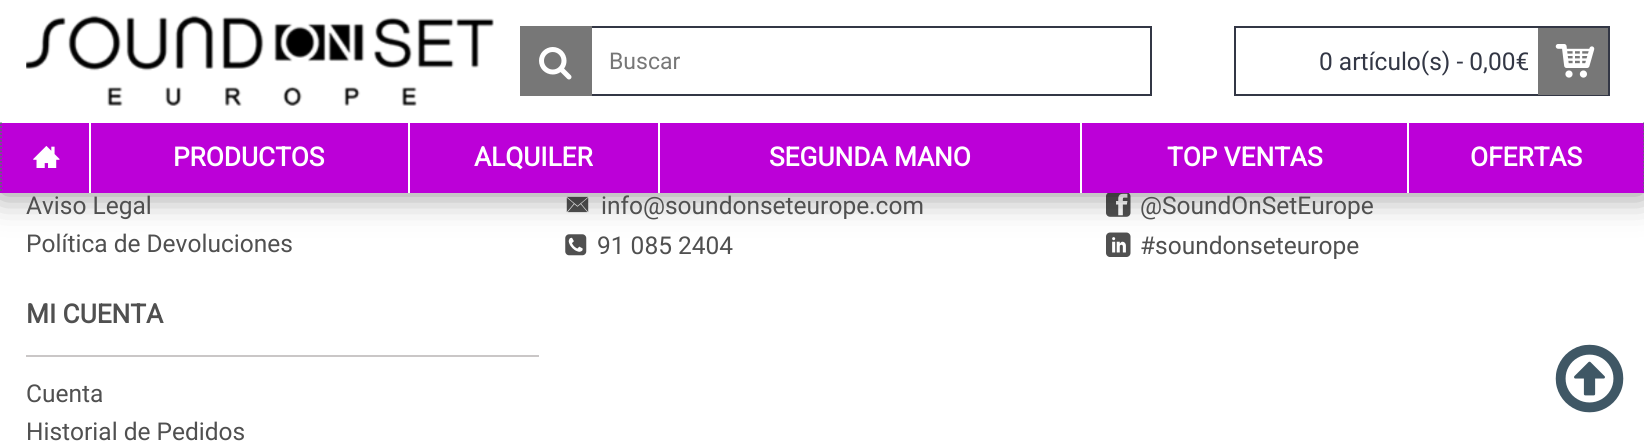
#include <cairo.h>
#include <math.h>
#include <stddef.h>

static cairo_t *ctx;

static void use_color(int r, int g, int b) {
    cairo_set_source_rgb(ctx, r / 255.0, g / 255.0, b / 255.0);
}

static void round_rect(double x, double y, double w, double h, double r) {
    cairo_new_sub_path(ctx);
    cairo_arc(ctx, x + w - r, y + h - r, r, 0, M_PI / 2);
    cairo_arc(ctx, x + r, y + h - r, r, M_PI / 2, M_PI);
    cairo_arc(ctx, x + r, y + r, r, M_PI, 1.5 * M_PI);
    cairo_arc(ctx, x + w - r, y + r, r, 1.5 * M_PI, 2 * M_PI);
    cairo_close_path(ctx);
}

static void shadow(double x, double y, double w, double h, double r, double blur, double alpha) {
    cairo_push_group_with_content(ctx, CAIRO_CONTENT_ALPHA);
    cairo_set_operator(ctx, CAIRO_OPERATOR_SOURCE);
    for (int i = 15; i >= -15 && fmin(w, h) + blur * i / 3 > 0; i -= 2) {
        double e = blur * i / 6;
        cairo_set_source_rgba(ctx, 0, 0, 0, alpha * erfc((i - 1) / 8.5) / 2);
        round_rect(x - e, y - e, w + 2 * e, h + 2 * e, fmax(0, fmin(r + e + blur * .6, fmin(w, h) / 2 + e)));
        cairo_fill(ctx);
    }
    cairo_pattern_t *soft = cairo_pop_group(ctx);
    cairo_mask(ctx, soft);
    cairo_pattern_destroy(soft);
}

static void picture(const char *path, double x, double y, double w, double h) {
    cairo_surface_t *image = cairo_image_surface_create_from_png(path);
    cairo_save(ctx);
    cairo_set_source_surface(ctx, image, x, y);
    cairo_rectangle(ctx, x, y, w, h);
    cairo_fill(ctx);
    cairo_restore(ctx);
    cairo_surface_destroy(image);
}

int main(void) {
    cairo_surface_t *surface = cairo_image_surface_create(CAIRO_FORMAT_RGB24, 1644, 448);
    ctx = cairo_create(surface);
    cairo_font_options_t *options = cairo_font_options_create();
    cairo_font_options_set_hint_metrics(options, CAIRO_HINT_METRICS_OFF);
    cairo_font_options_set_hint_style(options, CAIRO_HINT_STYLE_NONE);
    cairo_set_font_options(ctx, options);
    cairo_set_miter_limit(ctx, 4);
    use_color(255, 255, 255);
    cairo_paint(ctx);
    picture("img5.png", 566, 196, 23, 17);
    picture("img6.png", 565, 234, 22, 22);
    picture("img7.png", 1106, 193, 25, 24);
    picture("img8.png", 1106, 232, 25, 25);
    use_color(0, 0, 0);
    shadow(0, 2, 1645, 192, 0, 17.5, 0.45);
    use_color(255, 255, 255);
    cairo_rectangle(ctx, 0, 0, 1644, 123);
    cairo_fill(ctx);
    picture("img1.png", 26, 15, 468, 91);
    cairo_rectangle(ctx, 521, 27, 630, 68);
    use_color(51, 55, 69);
    cairo_stroke(ctx);
    use_color(119, 119, 119);
    cairo_rectangle(ctx, 520, 26, 72, 70);
    cairo_fill(ctx);
    picture("img2.png", 539, 47, 33, 33);
    cairo_select_font_face(ctx, "Roboto", CAIRO_FONT_SLANT_NORMAL, CAIRO_FONT_WEIGHT_NORMAL);
    cairo_set_font_size(ctx, 23);
    cairo_move_to(ctx, 609, 69);
    cairo_show_text(ctx, "Buscar");
    cairo_rectangle(ctx, 1235, 27, 374, 68);
    use_color(51, 55, 69);
    cairo_stroke(ctx);
    cairo_set_font_size(ctx, 24.5);
    cairo_move_to(ctx, 1319, 70);
    cairo_show_text(ctx, "0 artículo(s) - 0,00€");
    use_color(119, 119, 119);
    cairo_rectangle(ctx, 1538, 28, 70, 67);
    cairo_fill(ctx);
    picture("img3.png", 1555, 44, 40, 34);
    use_color(188, 0, 216);
    cairo_rectangle(ctx, 0, 123, 1644, 70);
    cairo_fill(ctx);
    cairo_new_path(ctx);
    cairo_move_to(ctx, 1644, 122.5);
    cairo_line_to(ctx, 1644, 192.5);
    use_color(95, 104, 116);
    cairo_set_line_width(ctx, 1.8);
    cairo_set_dash(ctx, (double[]){1.75, 1.75}, 2, 0);
    cairo_stroke(ctx);
    cairo_new_path(ctx);
    cairo_move_to(ctx, 1, 122.5);
    cairo_line_to(ctx, 1, 192.5);
    cairo_stroke(ctx);
    picture("img4.png", 33, 146, 27, 22);
    use_color(255, 255, 255);
    cairo_rectangle(ctx, 89, 123, 2, 70);
    cairo_fill(ctx);
    cairo_select_font_face(ctx, "Roboto", CAIRO_FONT_SLANT_NORMAL, CAIRO_FONT_WEIGHT_BOLD);
    cairo_set_font_size(ctx, 26.25);
    cairo_move_to(ctx, 173, 166);
    cairo_show_text(ctx, "PRODUCTOS");
    cairo_rectangle(ctx, 408, 123, 2, 70);
    cairo_fill(ctx);
    cairo_move_to(ctx, 474, 166);
    cairo_show_text(ctx, "ALQUILER");
    cairo_rectangle(ctx, 658, 123, 2, 70);
    cairo_fill(ctx);
    cairo_move_to(ctx, 769, 166);
    cairo_show_text(ctx, "SEGUNDA MANO");
    cairo_rectangle(ctx, 1080, 123, 2, 70);
    cairo_fill(ctx);
    cairo_move_to(ctx, 1167, 166);
    cairo_show_text(ctx, "TOP VENTAS");
    cairo_rectangle(ctx, 1407, 123, 2, 70);
    cairo_fill(ctx);
    cairo_move_to(ctx, 1470, 166);
    cairo_show_text(ctx, "OFERTAS");
    cairo_select_font_face(ctx, "Roboto", CAIRO_FONT_SLANT_NORMAL, CAIRO_FONT_WEIGHT_NORMAL);
    cairo_set_font_size(ctx, 24.5);
    use_color(80, 80, 80);
    cairo_move_to(ctx, 26, 214);
    cairo_show_text(ctx, "Aviso Legal");
    cairo_move_to(ctx, 26, 252);
    cairo_show_text(ctx, "Política de Devoluciones");
    cairo_move_to(ctx, 601, 214);
    cairo_show_text(ctx, "info@soundonseteurope.com");
    cairo_move_to(ctx, 597, 254);
    cairo_show_text(ctx, "91 085 2404");
    cairo_move_to(ctx, 1140, 214);
    cairo_show_text(ctx, "@SoundOnSetEurope");
    cairo_move_to(ctx, 1140, 254);
    cairo_show_text(ctx, "#soundonseteurope");
    use_color(202, 199, 199);
    cairo_rectangle(ctx, 26, 355, 513, 2);
    cairo_fill(ctx);
    cairo_select_font_face(ctx, "Roboto", CAIRO_FONT_SLANT_NORMAL, CAIRO_FONT_WEIGHT_BOLD);
    cairo_set_font_size(ctx, 26.25);
    use_color(80, 80, 80);
    cairo_move_to(ctx, 26, 323);
    cairo_show_text(ctx, "MI CUENTA");
    cairo_select_font_face(ctx, "Roboto", CAIRO_FONT_SLANT_NORMAL, CAIRO_FONT_WEIGHT_NORMAL);
    cairo_set_font_size(ctx, 24.5);
    cairo_move_to(ctx, 26, 402);
    cairo_show_text(ctx, "Cuenta");
    cairo_move_to(ctx, 26, 440);
    cairo_show_text(ctx, "Historial de Pedidos");
    picture("img9.png", 1555, 344, 69, 69);
    cairo_surface_write_to_png(surface, "result.png");
    cairo_font_options_destroy(options);
    cairo_destroy(ctx);
    cairo_surface_destroy(surface);
    return 0;
}
